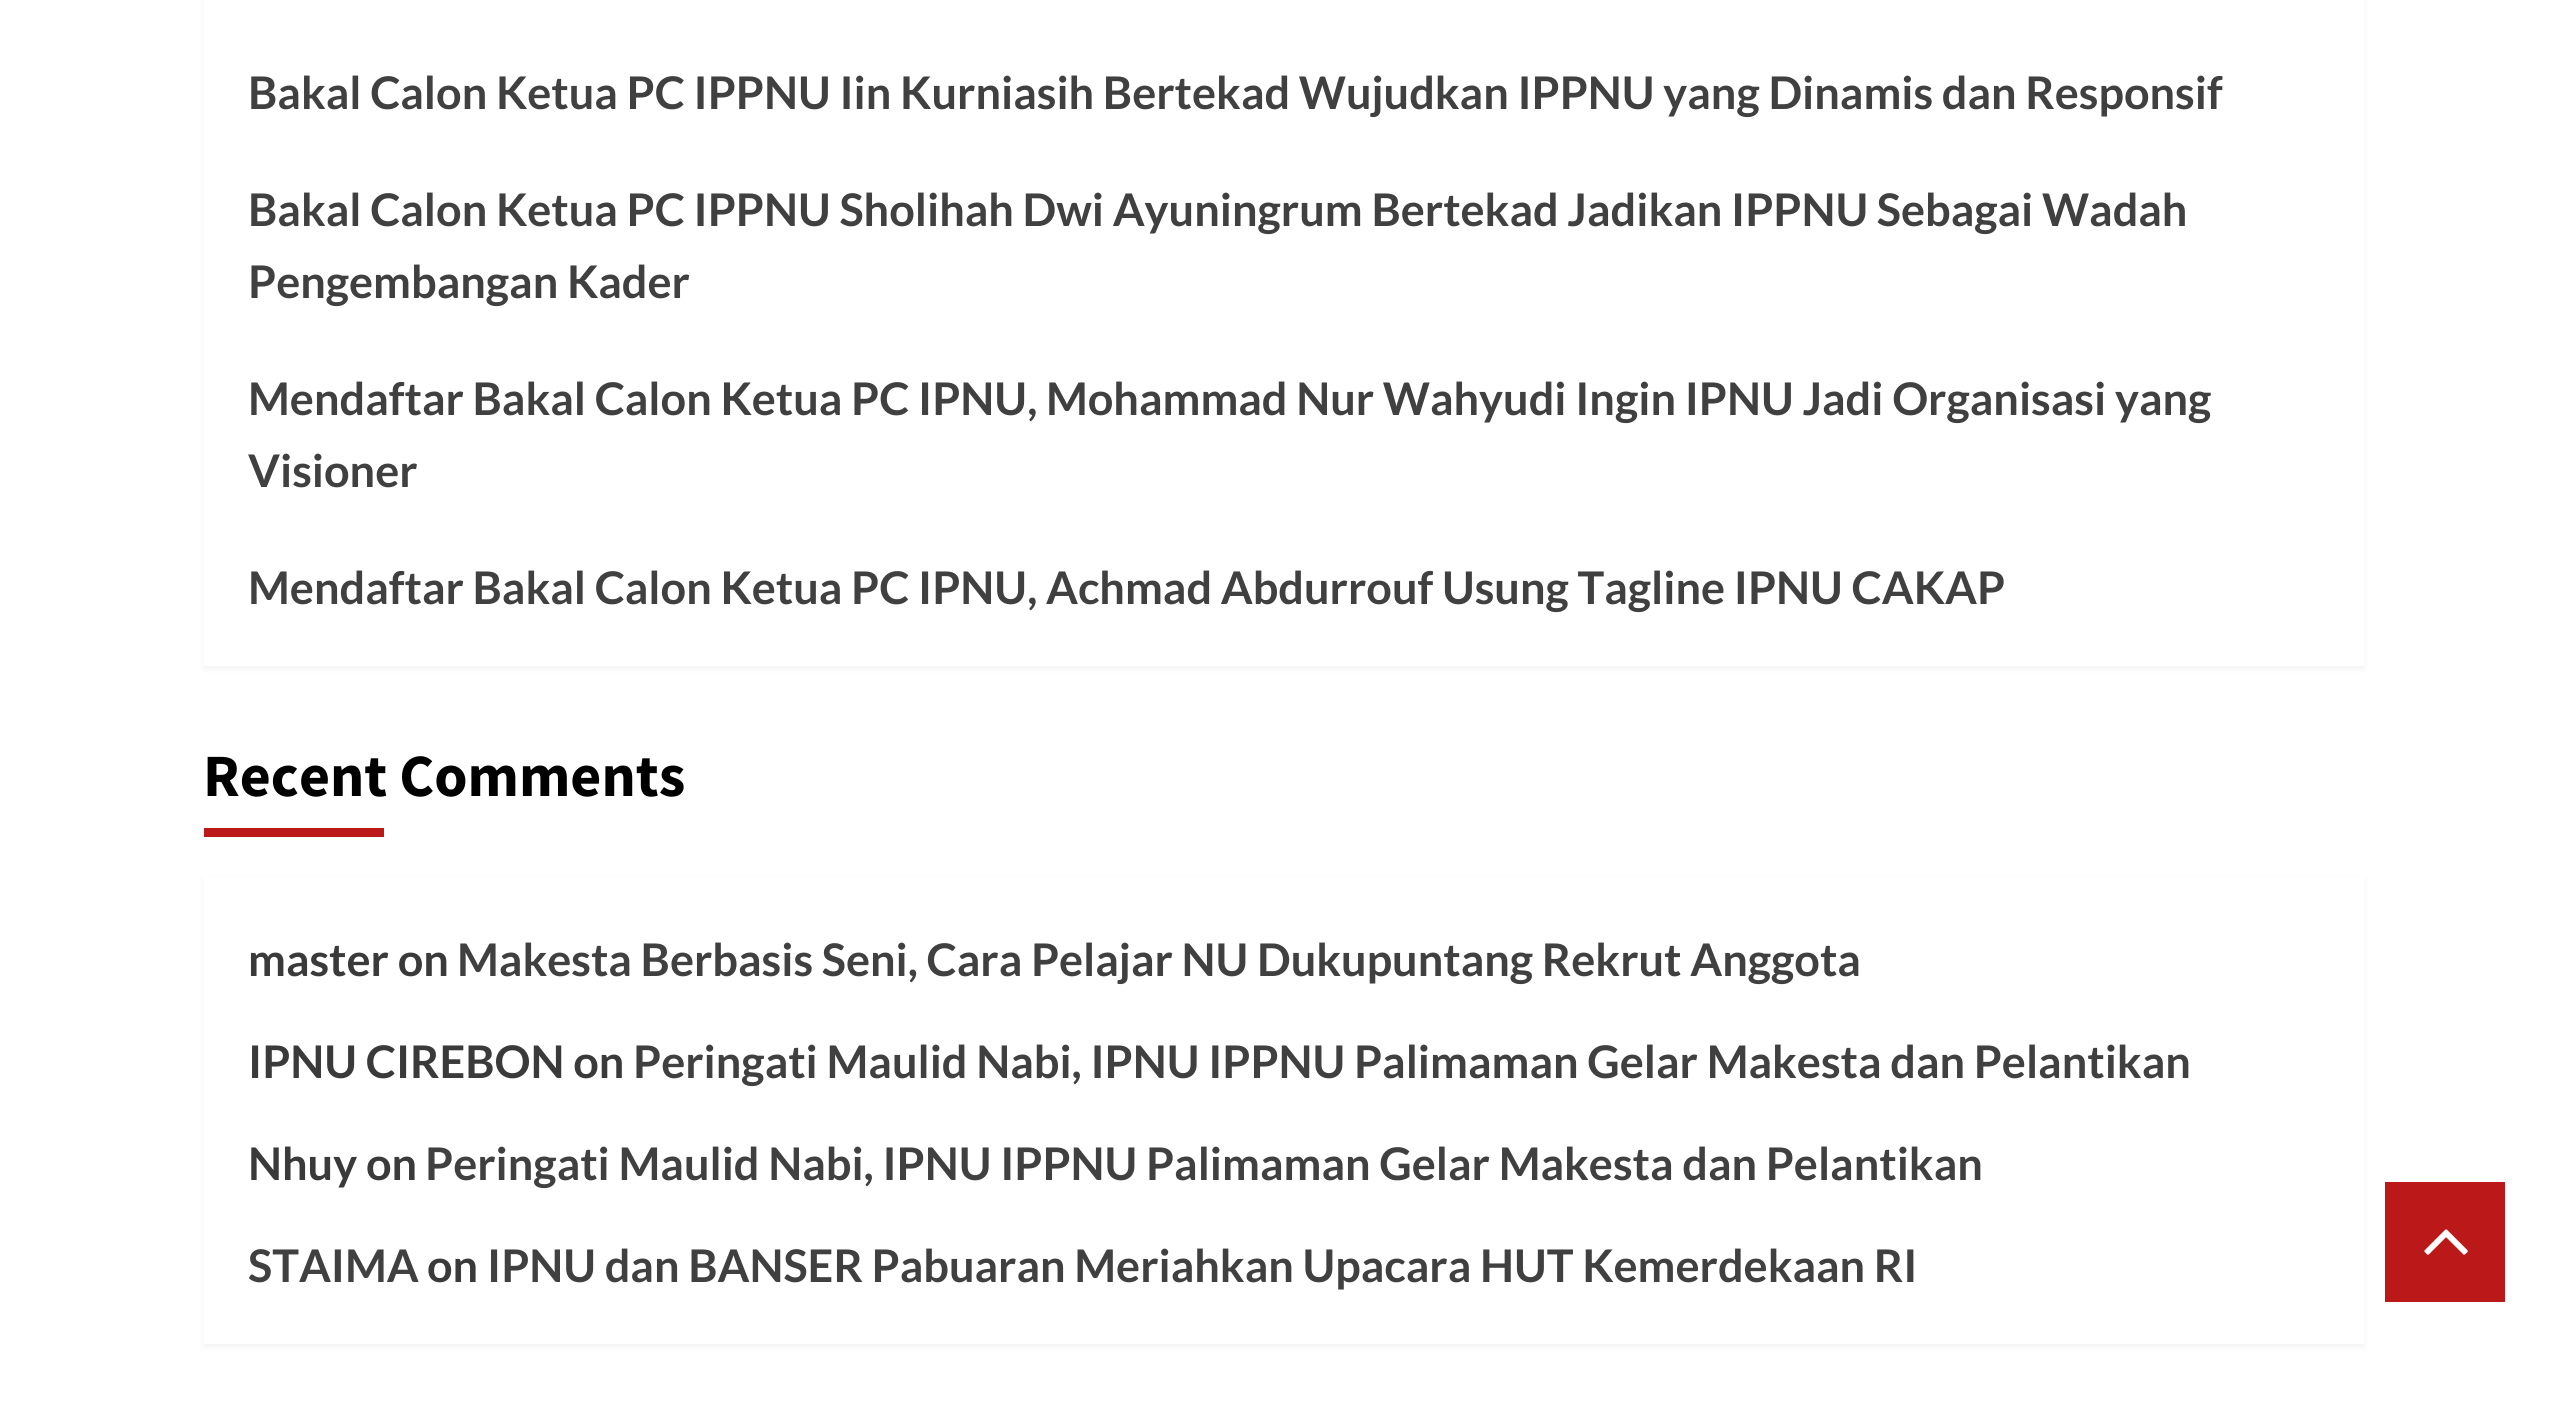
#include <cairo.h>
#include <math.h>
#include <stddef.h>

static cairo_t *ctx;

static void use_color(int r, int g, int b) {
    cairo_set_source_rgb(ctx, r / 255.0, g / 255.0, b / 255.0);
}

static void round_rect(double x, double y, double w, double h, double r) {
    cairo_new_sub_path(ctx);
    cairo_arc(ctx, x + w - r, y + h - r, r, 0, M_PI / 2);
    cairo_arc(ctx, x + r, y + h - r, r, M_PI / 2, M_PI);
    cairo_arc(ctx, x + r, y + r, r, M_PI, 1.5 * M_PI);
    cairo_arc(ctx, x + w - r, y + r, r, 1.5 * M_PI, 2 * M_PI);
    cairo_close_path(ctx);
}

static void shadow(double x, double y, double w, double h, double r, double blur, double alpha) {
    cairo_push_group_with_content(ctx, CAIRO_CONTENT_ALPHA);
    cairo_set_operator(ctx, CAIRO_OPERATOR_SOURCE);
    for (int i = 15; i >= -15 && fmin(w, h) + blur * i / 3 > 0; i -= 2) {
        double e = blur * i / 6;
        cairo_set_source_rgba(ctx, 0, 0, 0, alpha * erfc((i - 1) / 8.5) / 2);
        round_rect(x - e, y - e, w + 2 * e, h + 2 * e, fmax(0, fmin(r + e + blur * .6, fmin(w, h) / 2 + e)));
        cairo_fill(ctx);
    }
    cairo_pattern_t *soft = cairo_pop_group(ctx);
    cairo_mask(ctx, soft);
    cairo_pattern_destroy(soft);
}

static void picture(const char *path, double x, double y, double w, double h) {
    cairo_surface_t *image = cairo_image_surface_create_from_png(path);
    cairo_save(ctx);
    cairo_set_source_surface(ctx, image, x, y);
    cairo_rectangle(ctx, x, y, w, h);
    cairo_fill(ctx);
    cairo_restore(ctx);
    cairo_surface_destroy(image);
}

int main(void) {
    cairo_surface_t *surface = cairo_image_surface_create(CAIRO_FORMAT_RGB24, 2564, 1420);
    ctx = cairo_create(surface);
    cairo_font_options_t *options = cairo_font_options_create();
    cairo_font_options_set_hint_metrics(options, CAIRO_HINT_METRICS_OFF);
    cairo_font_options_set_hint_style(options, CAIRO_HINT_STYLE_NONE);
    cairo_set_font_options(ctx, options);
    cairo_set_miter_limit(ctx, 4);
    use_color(255, 255, 255);
    cairo_paint(ctx);
    cairo_save(ctx);
    cairo_set_fill_rule(ctx, CAIRO_FILL_RULE_EVEN_ODD);
    cairo_new_path(ctx);
    cairo_move_to(ctx, 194, 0);
    cairo_line_to(ctx, 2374, 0);
    cairo_line_to(ctx, 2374, 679);
    cairo_line_to(ctx, 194, 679);
    cairo_close_path(ctx);
    cairo_move_to(ctx, 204, -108);
    cairo_line_to(ctx, 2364, -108);
    cairo_line_to(ctx, 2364, 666);
    cairo_line_to(ctx, 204, 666);
    cairo_close_path(ctx);
    cairo_clip(ctx);
    use_color(0, 0, 0);
    shadow(204, -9, 2160, 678, 0, 3, 0.05);
    cairo_restore(ctx);
    cairo_select_font_face(ctx, "Lato", CAIRO_FONT_SLANT_NORMAL, CAIRO_FONT_WEIGHT_BOLD);
    cairo_set_font_size(ctx, 45);
    use_color(64, 64, 64);
    cairo_move_to(ctx, 248, 109);
    cairo_show_text(ctx, "Bakal Calon Ketua PC IPPNU Iin Kurniasih Bertekad Wujudkan IPPNU yang Dinamis dan Responsif");
    cairo_move_to(ctx, 248, 226);
    cairo_show_text(ctx, "Bakal Calon Ketua PC IPPNU Sholihah Dwi Ayuningrum Bertekad Jadikan IPPNU Sebagai Wadah");
    cairo_move_to(ctx, 248, 298);
    cairo_show_text(ctx, "Pengembangan Kader");
    cairo_move_to(ctx, 248, 415);
    cairo_show_text(ctx, "Mendaftar Bakal Calon Ketua PC IPNU, Mohammad Nur Wahyudi Ingin IPNU Jadi Organisasi yang");
    cairo_move_to(ctx, 248, 487);
    cairo_show_text(ctx, "Visioner");
    cairo_move_to(ctx, 248, 604);
    cairo_show_text(ctx, "Mendaftar Bakal Calon Ketua PC IPNU, Achmad Abdurrouf Usung Tagline IPNU CAKAP");
    cairo_select_font_face(ctx, "Source Sans Pro", CAIRO_FONT_SLANT_NORMAL, CAIRO_FONT_WEIGHT_BOLD);
    cairo_set_font_size(ctx, 60);
    use_color(0, 0, 0);
    cairo_move_to(ctx, 203, 796);
    cairo_show_text(ctx, "Recent Comments");
    use_color(187, 25, 25);
    cairo_rectangle(ctx, 204, 828, 180, 9);
    cairo_fill(ctx);
    cairo_save(ctx);
    cairo_set_fill_rule(ctx, CAIRO_FILL_RULE_EVEN_ODD);
    cairo_new_path(ctx);
    cairo_move_to(ctx, 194, 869);
    cairo_line_to(ctx, 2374, 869);
    cairo_line_to(ctx, 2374, 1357);
    cairo_line_to(ctx, 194, 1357);
    cairo_close_path(ctx);
    cairo_move_to(ctx, 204, 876);
    cairo_line_to(ctx, 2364, 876);
    cairo_line_to(ctx, 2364, 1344);
    cairo_line_to(ctx, 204, 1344);
    cairo_close_path(ctx);
    cairo_clip(ctx);
    use_color(0, 0, 0);
    shadow(204, 879, 2160, 468, 0, 3, 0.05);
    cairo_restore(ctx);
    cairo_select_font_face(ctx, "Lato", CAIRO_FONT_SLANT_NORMAL, CAIRO_FONT_WEIGHT_BOLD);
    cairo_set_font_size(ctx, 45);
    use_color(58, 58, 58);
    cairo_move_to(ctx, 248, 976);
    cairo_show_text(ctx, "master on");
    use_color(64, 64, 64);
    cairo_move_to(ctx, 457, 976);
    cairo_show_text(ctx, "Makesta Berbasis Seni, Cara Pelajar NU Dukupuntang Rekrut Anggota");
    use_color(58, 58, 58);
    cairo_move_to(ctx, 248, 1078);
    cairo_show_text(ctx, "IPNU CIREBON on");
    use_color(64, 64, 64);
    cairo_move_to(ctx, 633, 1078);
    cairo_show_text(ctx, "Peringati Maulid Nabi, IPNU IPPNU Palimaman Gelar Makesta dan Pelantikan");
    use_color(58, 58, 58);
    cairo_move_to(ctx, 248, 1180);
    cairo_show_text(ctx, "Nhuy on");
    use_color(64, 64, 64);
    cairo_move_to(ctx, 425, 1180);
    cairo_show_text(ctx, "Peringati Maulid Nabi, IPNU IPPNU Palimaman Gelar Makesta dan Pelantikan");
    cairo_move_to(ctx, 248, 1282);
    cairo_show_text(ctx, "STAIMA");
    use_color(58, 58, 58);
    cairo_move_to(ctx, 427, 1282);
    cairo_show_text(ctx, "on");
    use_color(64, 64, 64);
    cairo_move_to(ctx, 487, 1282);
    cairo_show_text(ctx, "IPNU dan BANSER Pabuaran Meriahkan Upacara HUT Kemerdekaan RI");
    use_color(187, 25, 25);
    cairo_rectangle(ctx, 2385, 1182, 120, 120);
    cairo_fill(ctx);
    picture("img1.png", 2424, 1229, 44, 26);
    cairo_surface_write_to_png(surface, "result.png");
    cairo_font_options_destroy(options);
    cairo_destroy(ctx);
    cairo_surface_destroy(surface);
    return 0;
}
